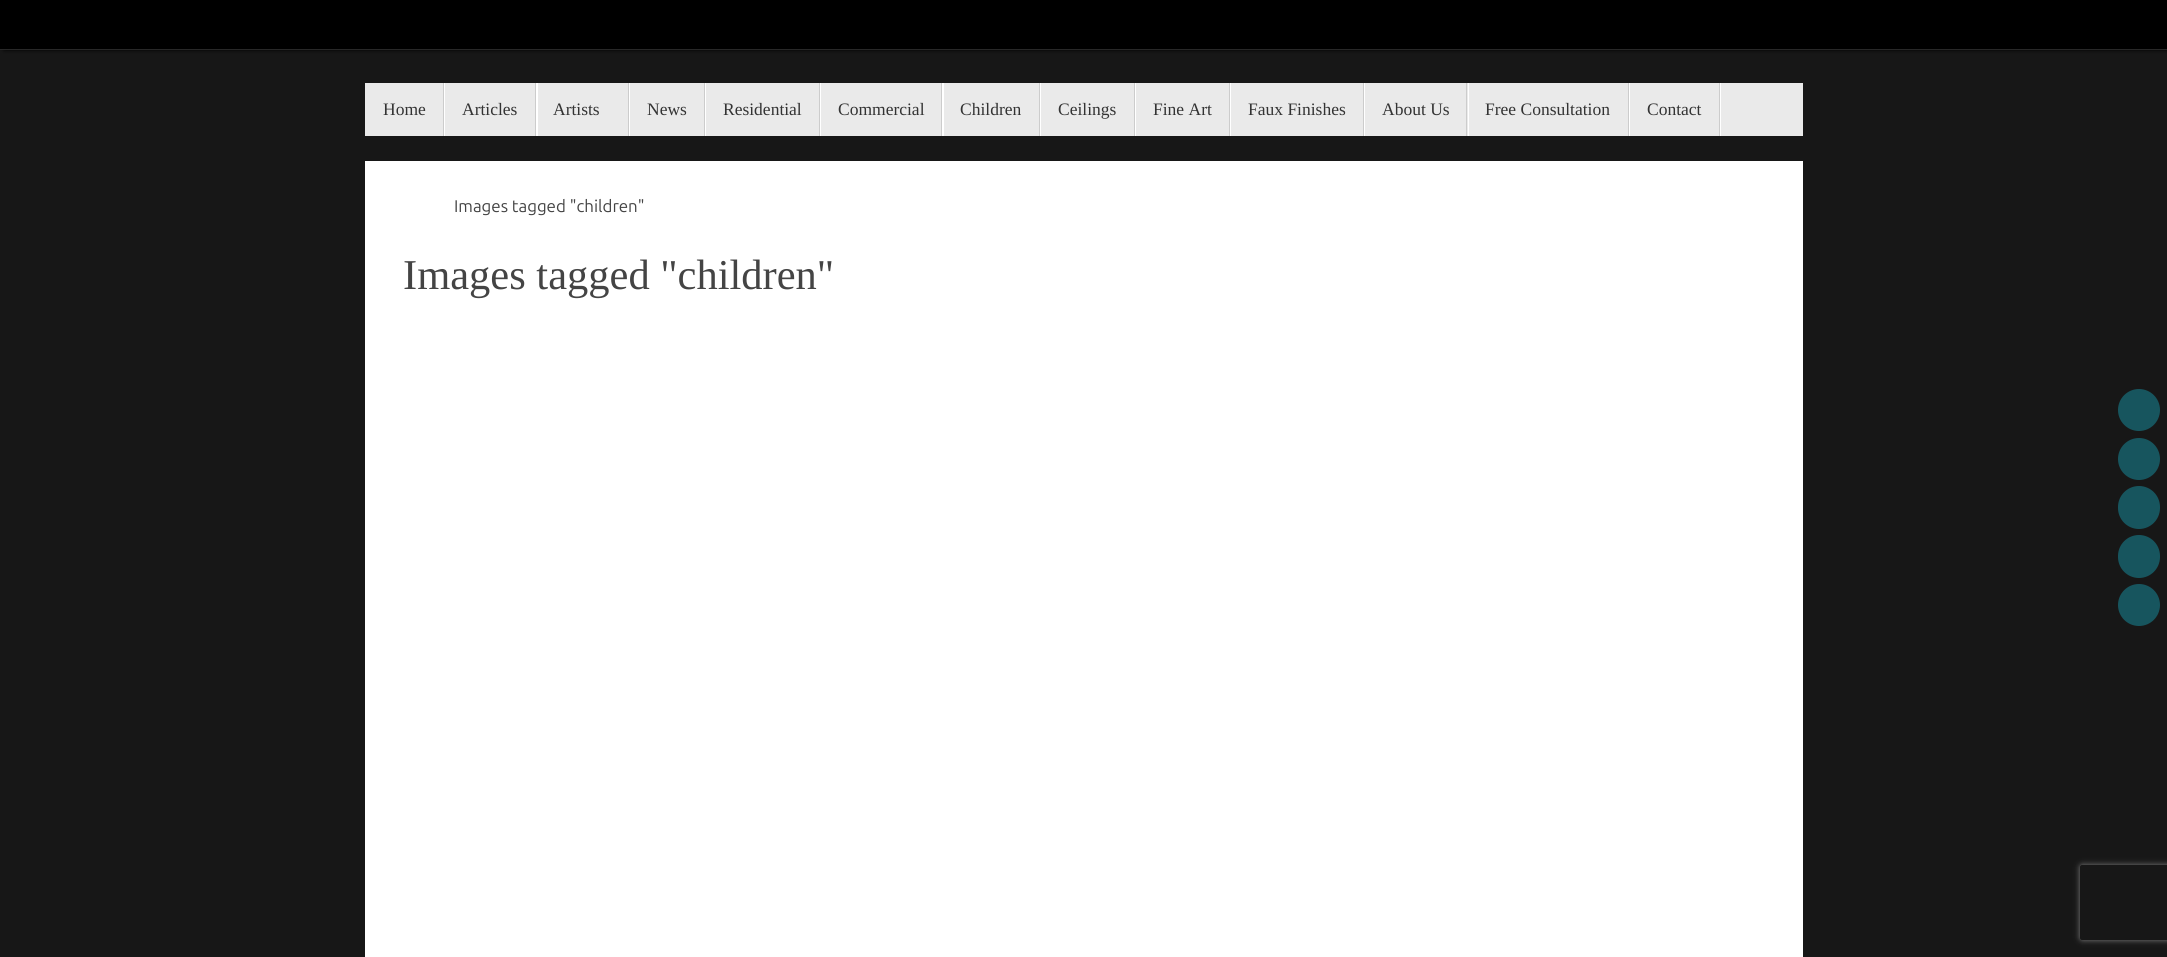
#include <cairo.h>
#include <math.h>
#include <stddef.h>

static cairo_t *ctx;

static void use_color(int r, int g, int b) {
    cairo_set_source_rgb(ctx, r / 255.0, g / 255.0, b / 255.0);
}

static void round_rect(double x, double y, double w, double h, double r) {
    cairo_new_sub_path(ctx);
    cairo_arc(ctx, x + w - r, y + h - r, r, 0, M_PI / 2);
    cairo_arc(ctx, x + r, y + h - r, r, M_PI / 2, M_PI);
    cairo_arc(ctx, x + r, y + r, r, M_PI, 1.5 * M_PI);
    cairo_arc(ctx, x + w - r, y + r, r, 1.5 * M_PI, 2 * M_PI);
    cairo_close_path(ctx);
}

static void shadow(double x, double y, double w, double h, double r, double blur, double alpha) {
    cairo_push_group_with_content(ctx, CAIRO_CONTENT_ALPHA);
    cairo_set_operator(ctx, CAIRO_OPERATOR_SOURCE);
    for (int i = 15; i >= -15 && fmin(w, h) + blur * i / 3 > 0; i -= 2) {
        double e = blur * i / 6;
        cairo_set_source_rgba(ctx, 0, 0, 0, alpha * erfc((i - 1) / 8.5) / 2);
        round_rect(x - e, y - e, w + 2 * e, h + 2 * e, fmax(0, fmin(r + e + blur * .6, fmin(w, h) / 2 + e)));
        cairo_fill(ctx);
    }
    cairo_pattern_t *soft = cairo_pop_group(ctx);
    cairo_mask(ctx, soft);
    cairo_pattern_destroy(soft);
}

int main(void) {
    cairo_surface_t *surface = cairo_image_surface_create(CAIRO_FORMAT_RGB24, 2167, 957);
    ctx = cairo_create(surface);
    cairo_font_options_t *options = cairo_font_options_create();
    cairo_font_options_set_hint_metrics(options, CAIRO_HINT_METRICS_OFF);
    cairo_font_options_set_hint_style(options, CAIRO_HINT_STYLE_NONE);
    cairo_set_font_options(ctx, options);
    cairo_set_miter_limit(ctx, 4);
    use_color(23, 23, 23);
    cairo_paint(ctx);
    use_color(0, 0, 0);
    shadow(4, 0, 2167, 50, 0, 2, 1);
    use_color(0, 0, 0);
    cairo_rectangle(ctx, 0, 0, 2167, 49);
    cairo_fill(ctx);
    use_color(40, 40, 40);
    cairo_rectangle(ctx, 0, 49, 2167, 1);
    cairo_fill(ctx);
    use_color(234, 234, 234);
    cairo_rectangle(ctx, 365, 83, 1438, 53);
    cairo_fill(ctx);
    use_color(255, 255, 255);
    cairo_rectangle(ctx, 444, 83, 1, 53);
    cairo_fill(ctx);
    use_color(204, 204, 204);
    cairo_rectangle(ctx, 443, 83, 1, 53);
    cairo_fill(ctx);
    cairo_select_font_face(ctx, "Liberation Serif", CAIRO_FONT_SLANT_NORMAL, CAIRO_FONT_WEIGHT_NORMAL);
    cairo_set_font_size(ctx, 17.5);
    use_color(51, 51, 51);
    cairo_move_to(ctx, 383, 115);
    cairo_show_text(ctx, "Home");
    use_color(255, 255, 255);
    cairo_rectangle(ctx, 536, 83, 2, 53);
    cairo_fill(ctx);
    use_color(204, 204, 204);
    cairo_rectangle(ctx, 535, 83, 1, 53);
    cairo_fill(ctx);
    use_color(51, 51, 51);
    cairo_move_to(ctx, 462, 115);
    cairo_show_text(ctx, "Articles");
    use_color(255, 255, 255);
    cairo_rectangle(ctx, 629, 83, 1, 53);
    cairo_fill(ctx);
    use_color(204, 204, 204);
    cairo_rectangle(ctx, 628, 83, 1, 53);
    cairo_fill(ctx);
    use_color(51, 51, 51);
    cairo_move_to(ctx, 553, 115);
    cairo_show_text(ctx, "Artists");
    use_color(255, 255, 255);
    cairo_rectangle(ctx, 705, 83, 1, 53);
    cairo_fill(ctx);
    use_color(204, 204, 204);
    cairo_rectangle(ctx, 704, 83, 1, 53);
    cairo_fill(ctx);
    use_color(51, 51, 51);
    cairo_move_to(ctx, 647, 115);
    cairo_show_text(ctx, "News");
    use_color(255, 255, 255);
    cairo_rectangle(ctx, 820, 83, 1, 53);
    cairo_fill(ctx);
    use_color(204, 204, 204);
    cairo_rectangle(ctx, 819, 83, 1, 53);
    cairo_fill(ctx);
    use_color(51, 51, 51);
    cairo_move_to(ctx, 723, 115);
    cairo_show_text(ctx, "Residential");
    use_color(255, 255, 255);
    cairo_rectangle(ctx, 942, 83, 2, 53);
    cairo_fill(ctx);
    use_color(204, 204, 204);
    cairo_rectangle(ctx, 941, 83, 1, 53);
    cairo_fill(ctx);
    use_color(51, 51, 51);
    cairo_move_to(ctx, 838, 115);
    cairo_show_text(ctx, "Commercial");
    use_color(255, 255, 255);
    cairo_rectangle(ctx, 1040, 83, 1, 53);
    cairo_fill(ctx);
    use_color(204, 204, 204);
    cairo_rectangle(ctx, 1039, 83, 1, 53);
    cairo_fill(ctx);
    use_color(51, 51, 51);
    cairo_move_to(ctx, 960, 115);
    cairo_show_text(ctx, "Children");
    use_color(255, 255, 255);
    cairo_rectangle(ctx, 1135, 83, 1, 53);
    cairo_fill(ctx);
    use_color(204, 204, 204);
    cairo_rectangle(ctx, 1134, 83, 1, 53);
    cairo_fill(ctx);
    use_color(51, 51, 51);
    cairo_move_to(ctx, 1058, 115);
    cairo_show_text(ctx, "Ceilings");
    use_color(255, 255, 255);
    cairo_rectangle(ctx, 1230, 83, 1, 53);
    cairo_fill(ctx);
    use_color(204, 204, 204);
    cairo_rectangle(ctx, 1229, 83, 1, 53);
    cairo_fill(ctx);
    use_color(51, 51, 51);
    cairo_move_to(ctx, 1153, 115);
    cairo_show_text(ctx, "Fine Art");
    use_color(255, 255, 255);
    cairo_rectangle(ctx, 1364, 83, 1, 53);
    cairo_fill(ctx);
    use_color(204, 204, 204);
    cairo_rectangle(ctx, 1363, 83, 1, 53);
    cairo_fill(ctx);
    use_color(51, 51, 51);
    cairo_move_to(ctx, 1248, 115);
    cairo_show_text(ctx, "Faux Finishes");
    use_color(255, 255, 255);
    cairo_rectangle(ctx, 1468, 83, 1, 53);
    cairo_fill(ctx);
    use_color(204, 204, 204);
    cairo_rectangle(ctx, 1466, 83, 1, 53);
    cairo_fill(ctx);
    use_color(51, 51, 51);
    cairo_move_to(ctx, 1382, 115);
    cairo_show_text(ctx, "About Us");
    use_color(255, 255, 255);
    cairo_rectangle(ctx, 1629, 83, 1, 53);
    cairo_fill(ctx);
    use_color(204, 204, 204);
    cairo_rectangle(ctx, 1628, 83, 1, 53);
    cairo_fill(ctx);
    use_color(51, 51, 51);
    cairo_move_to(ctx, 1485, 115);
    cairo_show_text(ctx, "Free Consultation");
    use_color(255, 255, 255);
    cairo_rectangle(ctx, 1720, 83, 1, 53);
    cairo_fill(ctx);
    use_color(204, 204, 204);
    cairo_rectangle(ctx, 1719, 83, 1, 53);
    cairo_fill(ctx);
    use_color(51, 51, 51);
    cairo_move_to(ctx, 1647, 115);
    cairo_show_text(ctx, "Contact");
    use_color(255, 255, 255);
    cairo_rectangle(ctx, 365, 161, 1438, 796);
    cairo_fill(ctx);
    cairo_select_font_face(ctx, "Ubuntu", CAIRO_FONT_SLANT_NORMAL, CAIRO_FONT_WEIGHT_NORMAL);
    cairo_set_font_size(ctx, 16.9);
    use_color(68, 68, 68);
    cairo_move_to(ctx, 454, 212);
    cairo_show_text(ctx, "Images tagged \"children\"");
    cairo_select_font_face(ctx, "Liberation Serif", CAIRO_FONT_SLANT_NORMAL, CAIRO_FONT_WEIGHT_NORMAL);
    cairo_set_font_size(ctx, 42.5);
    cairo_move_to(ctx, 403, 289);
    cairo_show_text(ctx, "Images tagged \"children\"");
    use_color(23, 85, 94);
    cairo_new_path(ctx);
    cairo_arc(ctx, 2139, 410, 21, 0, 2 * M_PI);
    cairo_fill(ctx);
    cairo_arc(ctx, 2139, 459, 21, 0, 2 * M_PI);
    cairo_fill(ctx);
    round_rect(2118, 486, 42, 43, 21);
    cairo_fill(ctx);
    round_rect(2118, 535, 42, 43, 21);
    cairo_fill(ctx);
    cairo_arc(ctx, 2139, 605, 21, 0, 2 * M_PI);
    cairo_fill(ctx);
    cairo_save(ctx);
    cairo_set_fill_rule(ctx, CAIRO_FILL_RULE_EVEN_ODD);
    cairo_new_path(ctx);
    cairo_move_to(ctx, 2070, 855);
    cairo_line_to(ctx, 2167, 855);
    cairo_line_to(ctx, 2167, 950);
    cairo_line_to(ctx, 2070, 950);
    cairo_close_path(ctx);
    cairo_move_to(ctx, 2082.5, 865);
    cairo_line_to(ctx, 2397.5, 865);
    cairo_curve_to(ctx, 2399, 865, 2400, 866, 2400, 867.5);
    cairo_line_to(ctx, 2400, 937.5);
    cairo_curve_to(ctx, 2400, 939, 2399, 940, 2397.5, 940);
    cairo_line_to(ctx, 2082.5, 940);
    cairo_curve_to(ctx, 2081, 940, 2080, 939, 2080, 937.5);
    cairo_line_to(ctx, 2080, 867.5);
    cairo_curve_to(ctx, 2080, 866, 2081, 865, 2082.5, 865);
    cairo_close_path(ctx);
    cairo_clip(ctx);
    use_color(128, 128, 128);
    shadow(2080, 865, 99, 75, 2.5, 3, 1);
    cairo_restore(ctx);
    cairo_surface_write_to_png(surface, "result.png");
    cairo_font_options_destroy(options);
    cairo_destroy(ctx);
    cairo_surface_destroy(surface);
    return 0;
}
